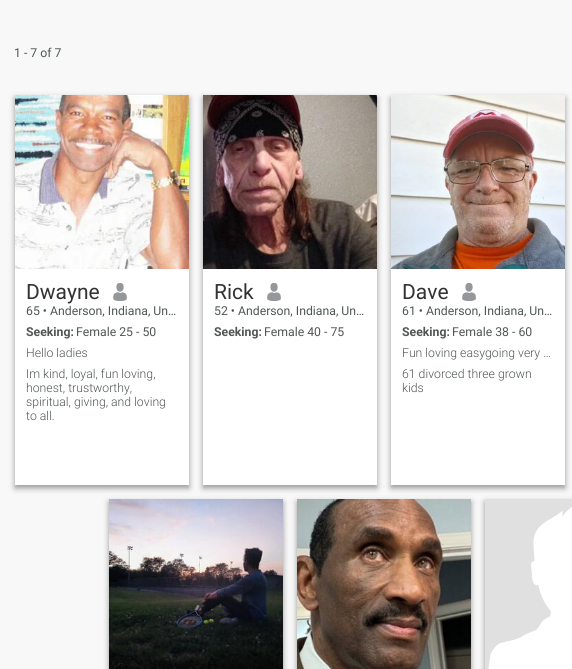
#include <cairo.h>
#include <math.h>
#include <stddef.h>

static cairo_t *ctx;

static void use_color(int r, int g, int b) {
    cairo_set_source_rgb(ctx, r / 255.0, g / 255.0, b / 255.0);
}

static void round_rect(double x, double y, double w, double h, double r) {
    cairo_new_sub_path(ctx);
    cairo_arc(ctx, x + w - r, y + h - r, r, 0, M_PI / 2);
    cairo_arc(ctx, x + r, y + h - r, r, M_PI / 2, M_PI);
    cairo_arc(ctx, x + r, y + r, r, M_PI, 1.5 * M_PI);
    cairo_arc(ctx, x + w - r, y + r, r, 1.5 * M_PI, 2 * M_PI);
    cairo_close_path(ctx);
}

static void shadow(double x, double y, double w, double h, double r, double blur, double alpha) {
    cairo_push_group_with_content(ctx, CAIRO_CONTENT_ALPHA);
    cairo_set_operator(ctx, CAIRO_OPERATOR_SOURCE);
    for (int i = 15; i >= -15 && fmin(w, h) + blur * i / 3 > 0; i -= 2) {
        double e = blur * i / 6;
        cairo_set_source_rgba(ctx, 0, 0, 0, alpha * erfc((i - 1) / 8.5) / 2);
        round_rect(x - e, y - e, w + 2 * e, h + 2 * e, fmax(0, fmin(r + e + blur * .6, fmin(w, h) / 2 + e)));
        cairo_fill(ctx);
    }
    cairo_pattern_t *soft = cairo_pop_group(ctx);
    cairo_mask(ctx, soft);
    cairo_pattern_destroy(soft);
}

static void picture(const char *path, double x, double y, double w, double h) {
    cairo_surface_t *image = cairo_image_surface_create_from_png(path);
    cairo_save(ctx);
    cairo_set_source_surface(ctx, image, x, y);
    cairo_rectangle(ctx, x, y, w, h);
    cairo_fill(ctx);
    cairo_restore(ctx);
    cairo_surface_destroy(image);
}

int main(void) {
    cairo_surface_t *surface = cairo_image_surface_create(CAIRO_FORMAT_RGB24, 572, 669);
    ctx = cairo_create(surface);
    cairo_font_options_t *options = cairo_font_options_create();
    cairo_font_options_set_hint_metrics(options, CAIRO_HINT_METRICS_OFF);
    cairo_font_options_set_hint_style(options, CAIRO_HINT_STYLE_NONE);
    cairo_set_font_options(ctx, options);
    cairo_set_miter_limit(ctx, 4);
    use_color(248, 248, 248);
    cairo_paint(ctx);
    cairo_select_font_face(ctx, "Roboto", CAIRO_FONT_SLANT_NORMAL, CAIRO_FONT_WEIGHT_NORMAL);
    cairo_set_font_size(ctx, 12.25);
    use_color(80, 86, 86);
    cairo_move_to(ctx, 14, 57);
    cairo_show_text(ctx, "1 - 7 of 7");
    use_color(0, 0, 0);
    shadow(15, 98, 174, 390, 0, 3, 0.4);
    use_color(255, 255, 255);
    cairo_rectangle(ctx, 15, 269, 174, 216);
    cairo_fill(ctx);
    picture("img1.png", 15, 95, 174, 174);
    cairo_set_font_size(ctx, 21);
    use_color(50, 50, 50);
    cairo_move_to(ctx, 26, 299);
    cairo_show_text(ctx, "Dwayne");
    picture("img2.png", 113, 283, 14, 18);
    cairo_set_font_size(ctx, 12.25);
    use_color(80, 86, 86);
    cairo_move_to(ctx, 26, 315);
    cairo_show_text(ctx, "65 • Anderson, Indiana, Un…");
    cairo_select_font_face(ctx, "Roboto", CAIRO_FONT_SLANT_NORMAL, CAIRO_FONT_WEIGHT_BOLD);
    cairo_move_to(ctx, 26, 336);
    cairo_show_text(ctx, "Seeking:");
    cairo_select_font_face(ctx, "Roboto", CAIRO_FONT_SLANT_NORMAL, CAIRO_FONT_WEIGHT_NORMAL);
    cairo_move_to(ctx, 76, 336);
    cairo_show_text(ctx, "Female 25 - 50");
    cairo_select_font_face(ctx, "Roboto Light", CAIRO_FONT_SLANT_NORMAL, CAIRO_FONT_WEIGHT_NORMAL);
    cairo_move_to(ctx, 26, 357);
    cairo_show_text(ctx, "Hello ladies");
    cairo_move_to(ctx, 26, 378);
    cairo_show_text(ctx, "Im kind, loyal, fun loving,");
    cairo_move_to(ctx, 26, 392);
    cairo_show_text(ctx, "honest, trustworthy,");
    cairo_move_to(ctx, 26, 406);
    cairo_show_text(ctx, "spiritual, giving, and loving");
    cairo_move_to(ctx, 26, 420);
    cairo_show_text(ctx, "to all.");
    use_color(0, 0, 0);
    shadow(203, 98, 174, 390, 0, 3, 0.4);
    use_color(255, 255, 255);
    cairo_rectangle(ctx, 203, 269, 174, 216);
    cairo_fill(ctx);
    picture("img3.png", 203, 95, 174, 174);
    cairo_select_font_face(ctx, "Roboto", CAIRO_FONT_SLANT_NORMAL, CAIRO_FONT_WEIGHT_NORMAL);
    cairo_set_font_size(ctx, 21);
    use_color(50, 50, 50);
    cairo_move_to(ctx, 214, 299);
    cairo_show_text(ctx, "Rick");
    picture("img2.png", 267, 283, 14, 18);
    cairo_set_font_size(ctx, 12.25);
    use_color(80, 86, 86);
    cairo_move_to(ctx, 214, 315);
    cairo_show_text(ctx, "52 • Anderson, Indiana, Un…");
    cairo_select_font_face(ctx, "Roboto", CAIRO_FONT_SLANT_NORMAL, CAIRO_FONT_WEIGHT_BOLD);
    cairo_move_to(ctx, 214, 336);
    cairo_show_text(ctx, "Seeking:");
    cairo_select_font_face(ctx, "Roboto", CAIRO_FONT_SLANT_NORMAL, CAIRO_FONT_WEIGHT_NORMAL);
    cairo_move_to(ctx, 264, 336);
    cairo_show_text(ctx, "Female 40 - 75");
    use_color(0, 0, 0);
    shadow(391, 98, 174, 390, 0, 3, 0.4);
    use_color(255, 255, 255);
    cairo_rectangle(ctx, 391, 269, 174, 216);
    cairo_fill(ctx);
    picture("img4.png", 391, 95, 174, 174);
    cairo_set_font_size(ctx, 21);
    use_color(50, 50, 50);
    cairo_move_to(ctx, 402, 299);
    cairo_show_text(ctx, "Dave");
    picture("img2.png", 462, 283, 14, 18);
    cairo_set_font_size(ctx, 12.25);
    use_color(80, 86, 86);
    cairo_move_to(ctx, 402, 315);
    cairo_show_text(ctx, "61 • Anderson, Indiana, Un…");
    cairo_select_font_face(ctx, "Roboto", CAIRO_FONT_SLANT_NORMAL, CAIRO_FONT_WEIGHT_BOLD);
    cairo_move_to(ctx, 402, 336);
    cairo_show_text(ctx, "Seeking:");
    cairo_select_font_face(ctx, "Roboto", CAIRO_FONT_SLANT_NORMAL, CAIRO_FONT_WEIGHT_NORMAL);
    cairo_move_to(ctx, 452, 336);
    cairo_show_text(ctx, "Female 38 - 60");
    cairo_select_font_face(ctx, "Roboto Light", CAIRO_FONT_SLANT_NORMAL, CAIRO_FONT_WEIGHT_NORMAL);
    cairo_move_to(ctx, 402, 357);
    cairo_show_text(ctx, "Fun loving easygoing very …");
    cairo_move_to(ctx, 402, 378);
    cairo_show_text(ctx, "61 divorced three grown");
    cairo_move_to(ctx, 402, 392);
    cairo_show_text(ctx, "kids");
    use_color(0, 0, 0);
    shadow(109, 502, 174, 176, 0, 3, 0.4);
    picture("img5.png", 109, 499, 174, 170);
    shadow(297, 502, 174, 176, 0, 3, 0.4);
    picture("img6.png", 297, 499, 174, 170);
    shadow(485, 502, 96, 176, 0, 3, 0.4);
    use_color(224, 224, 224);
    cairo_rectangle(ctx, 485, 499, 87, 170);
    cairo_fill(ctx);
    picture("img7.png", 488, 507, 84, 162);
    cairo_surface_write_to_png(surface, "result.png");
    cairo_font_options_destroy(options);
    cairo_destroy(ctx);
    cairo_surface_destroy(surface);
    return 0;
}
